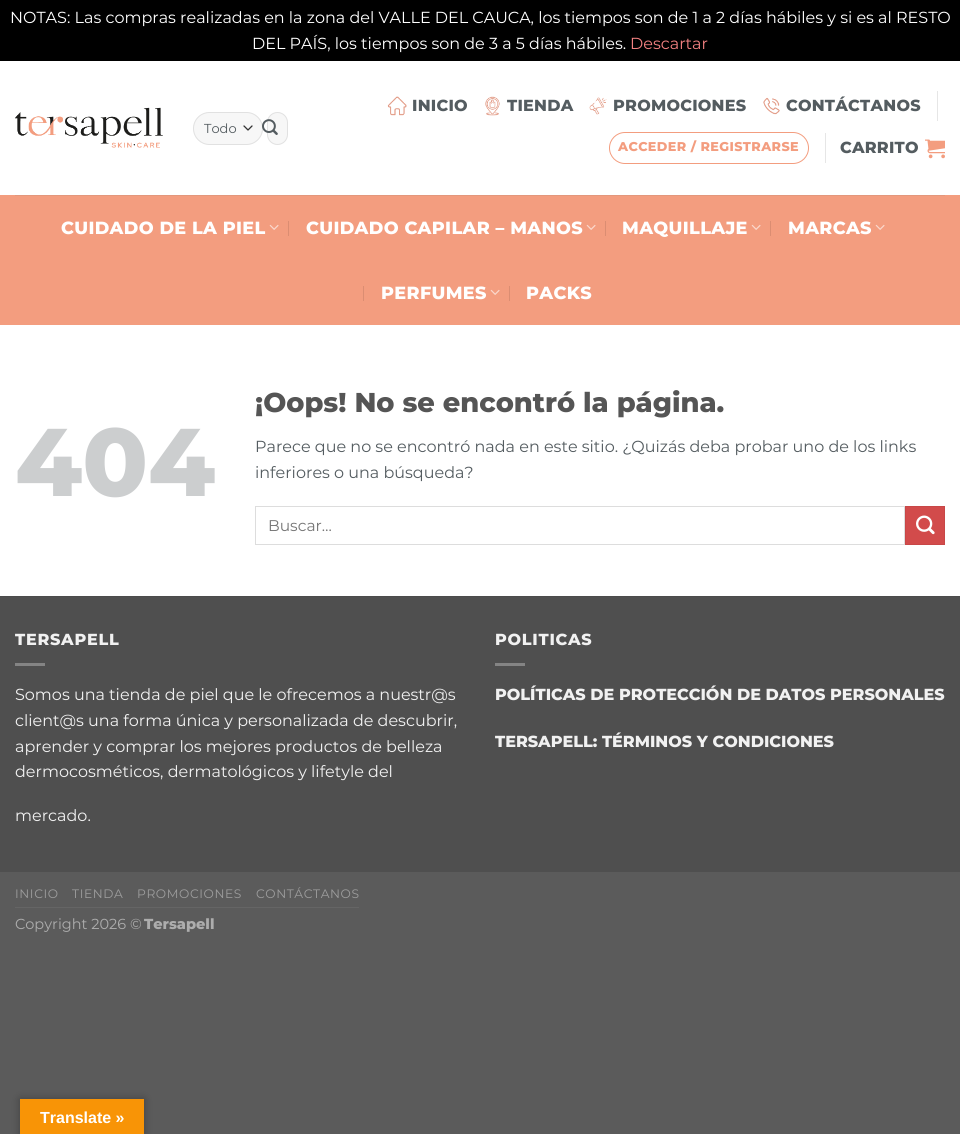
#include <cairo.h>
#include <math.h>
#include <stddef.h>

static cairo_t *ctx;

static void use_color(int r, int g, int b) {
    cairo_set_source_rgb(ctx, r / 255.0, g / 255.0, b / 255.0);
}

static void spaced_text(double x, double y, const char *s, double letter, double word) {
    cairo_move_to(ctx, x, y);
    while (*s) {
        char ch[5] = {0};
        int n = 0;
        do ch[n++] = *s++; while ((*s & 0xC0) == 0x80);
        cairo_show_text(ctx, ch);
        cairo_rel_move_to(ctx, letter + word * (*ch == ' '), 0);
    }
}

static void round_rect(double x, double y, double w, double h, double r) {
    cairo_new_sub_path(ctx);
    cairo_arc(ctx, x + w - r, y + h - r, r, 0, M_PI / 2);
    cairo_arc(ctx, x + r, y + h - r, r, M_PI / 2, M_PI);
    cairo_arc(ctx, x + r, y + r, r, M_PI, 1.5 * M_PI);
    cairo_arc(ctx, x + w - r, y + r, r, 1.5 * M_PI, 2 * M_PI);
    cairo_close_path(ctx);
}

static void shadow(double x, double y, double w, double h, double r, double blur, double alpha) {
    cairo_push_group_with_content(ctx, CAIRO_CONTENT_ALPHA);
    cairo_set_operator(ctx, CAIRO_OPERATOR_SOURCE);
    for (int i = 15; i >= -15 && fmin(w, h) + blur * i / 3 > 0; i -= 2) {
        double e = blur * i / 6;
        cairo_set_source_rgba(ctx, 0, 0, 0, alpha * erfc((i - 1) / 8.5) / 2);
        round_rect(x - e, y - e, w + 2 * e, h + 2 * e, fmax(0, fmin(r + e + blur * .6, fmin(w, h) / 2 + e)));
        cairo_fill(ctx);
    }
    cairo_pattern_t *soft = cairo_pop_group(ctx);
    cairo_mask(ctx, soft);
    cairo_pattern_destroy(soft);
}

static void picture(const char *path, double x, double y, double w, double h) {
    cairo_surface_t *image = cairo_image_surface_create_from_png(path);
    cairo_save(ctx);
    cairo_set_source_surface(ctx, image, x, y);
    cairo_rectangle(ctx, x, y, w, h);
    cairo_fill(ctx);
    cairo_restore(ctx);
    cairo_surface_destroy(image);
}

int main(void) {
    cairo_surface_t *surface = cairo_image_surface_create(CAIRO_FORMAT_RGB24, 960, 1134);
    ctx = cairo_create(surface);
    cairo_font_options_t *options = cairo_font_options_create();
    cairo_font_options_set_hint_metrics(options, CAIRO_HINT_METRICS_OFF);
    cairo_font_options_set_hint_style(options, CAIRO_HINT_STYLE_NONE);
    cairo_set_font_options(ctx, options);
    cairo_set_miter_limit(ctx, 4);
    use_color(91, 91, 91);
    cairo_paint(ctx);
    use_color(0, 0, 0);
    cairo_rectangle(ctx, 0, 0, 960, 61);
    cairo_fill(ctx);
    cairo_select_font_face(ctx, "Montserrat", CAIRO_FONT_SLANT_NORMAL, CAIRO_FONT_WEIGHT_NORMAL);
    cairo_set_font_size(ctx, 16);
    use_color(255, 255, 255);
    cairo_move_to(ctx, 10, 23);
    cairo_show_text(ctx, "NOTAS: Las compras realizadas en la zona del VALLE DEL CAUCA, los tiempos son de 1 a 2 días hábiles y si es al RESTO");
    cairo_move_to(ctx, 252, 49);
    cairo_show_text(ctx, "DEL PAÍS, los tiempos son de 3 a 5 días hábiles.");
    use_color(243, 129, 129);
    cairo_move_to(ctx, 630, 49);
    cairo_show_text(ctx, "Descartar");
    use_color(255, 255, 255);
    cairo_rectangle(ctx, 0, 61, 960, 535);
    cairo_fill(ctx);
    picture("img1.png", 15, 107, 148, 41);
    use_color(247, 247, 247);
    round_rect(267, 112, 21, 33, 10.5);
    cairo_fill(ctx);
    round_rect(267.5, 112.5, 20, 32, 10);
    cairo_set_source_rgba(ctx, 0, 0, 0, 0.09);
    cairo_set_line_width(ctx, 1);
    cairo_stroke(ctx);
    use_color(247, 247, 247);
    round_rect(193, 112, 70, 33, 16.5);
    cairo_fill(ctx);
    cairo_new_path(ctx);
    cairo_move_to(ctx, 244, 126);
    cairo_line_to(ctx, 248, 130);
    cairo_line_to(ctx, 252, 126);
    use_color(51, 51, 51);
    cairo_set_line_width(ctx, 1.3);
    cairo_set_line_cap(ctx, CAIRO_LINE_CAP_ROUND);
    cairo_set_line_join(ctx, CAIRO_LINE_JOIN_ROUND);
    cairo_stroke(ctx);
    round_rect(193.5, 112.5, 69, 32, 16);
    cairo_set_source_rgba(ctx, 0, 0, 0, 0.09);
    cairo_set_line_width(ctx, 1);
    cairo_set_line_cap(ctx, CAIRO_LINE_CAP_BUTT);
    cairo_set_line_join(ctx, CAIRO_LINE_JOIN_MITER);
    cairo_stroke(ctx);
    cairo_set_font_size(ctx, 13);
    use_color(84, 92, 96);
    cairo_move_to(ctx, 204, 133);
    cairo_show_text(ctx, "Todo");
    picture("img2.png", 262, 119, 16, 16);
    picture("img3.png", 387, 96, 20, 20);
    cairo_select_font_face(ctx, "Montserrat ExtraBold", CAIRO_FONT_SLANT_NORMAL, CAIRO_FONT_WEIGHT_NORMAL);
    cairo_set_font_size(ctx, 16);
    spaced_text(412, 111, "INICIO", 0.25, 0);
    picture("img4.png", 485, 96, 15, 20);
    spaced_text(507, 111, "TIENDA", 0.25, 0);
    picture("img5.png", 589, 97, 18, 18);
    spaced_text(613, 111, "PROMOCIONES", 0.25, 0);
    picture("img6.png", 763, 97, 17, 18);
    spaced_text(786, 111, "CONTÁCTANOS", 0.25, 0);
    use_color(230, 230, 230);
    cairo_rectangle(ctx, 937, 91, 1, 30);
    cairo_fill(ctx);
    round_rect(609.5, 132.5, 199, 31, 15.5);
    use_color(243, 157, 127);
    cairo_stroke(ctx);
    cairo_set_font_size(ctx, 12.75);
    spaced_text(618, 151, "ACCEDER / REGISTRARSE", 0.4, 0);
    use_color(230, 230, 230);
    cairo_rectangle(ctx, 825, 133, 1, 30);
    cairo_fill(ctx);
    cairo_set_font_size(ctx, 16);
    use_color(84, 92, 96);
    spaced_text(840, 153, "CARRITO", 0.25, 0);
    picture("img7.png", 925, 139, 20, 20);
    use_color(243, 157, 127);
    cairo_rectangle(ctx, 0, 195, 960, 130);
    cairo_fill(ctx);
    use_color(227, 151, 124);
    cairo_rectangle(ctx, 15, 195, 930, 1);
    cairo_fill(ctx);
    cairo_set_font_size(ctx, 17.6);
    use_color(255, 255, 255);
    spaced_text(61, 234, "CUIDADO DE LA PIEL", 0.35, 0);
    picture("img8.png", 269, 224, 10, 6);
    use_color(219, 141, 114);
    cairo_rectangle(ctx, 288, 221, 1, 15);
    cairo_fill(ctx);
    use_color(255, 255, 255);
    spaced_text(306, 234, "CUIDADO CAPILAR – MANOS", 0.35, 0);
    picture("img8.png", 586, 224, 10, 6);
    use_color(219, 141, 114);
    cairo_rectangle(ctx, 605, 221, 1, 15);
    cairo_fill(ctx);
    use_color(255, 255, 255);
    spaced_text(622, 234, "MAQUILLAJE", 0.35, 0);
    picture("img8.png", 751, 224, 10, 6);
    use_color(219, 141, 114);
    cairo_rectangle(ctx, 770, 221, 1, 15);
    cairo_fill(ctx);
    use_color(255, 255, 255);
    spaced_text(788, 234, "MARCAS", 0.35, 0);
    picture("img8.png", 875, 224, 10, 6);
    use_color(219, 141, 114);
    cairo_rectangle(ctx, 363, 286, 1, 15);
    cairo_fill(ctx);
    use_color(255, 255, 255);
    spaced_text(381, 299, "PERFUMES", 0.35, 0);
    picture("img8.png", 490, 289, 10, 6);
    use_color(219, 141, 114);
    cairo_rectangle(ctx, 509, 286, 1, 15);
    cairo_fill(ctx);
    use_color(255, 255, 255);
    spaced_text(526, 299, "PACKS", 0.35, 0);
    cairo_set_font_size(ctx, 96);
    use_color(204, 206, 207);
    cairo_move_to(ctx, 15, 496);
    cairo_show_text(ctx, "404");
    cairo_set_font_size(ctx, 27.25);
    use_color(85, 85, 85);
    cairo_move_to(ctx, 255, 412);
    cairo_show_text(ctx, "¡Oops! No se encontró la página.");
    cairo_select_font_face(ctx, "Montserrat", CAIRO_FONT_SLANT_NORMAL, CAIRO_FONT_WEIGHT_NORMAL);
    cairo_set_font_size(ctx, 16);
    use_color(84, 92, 96);
    cairo_move_to(ctx, 255, 452);
    cairo_show_text(ctx, "Parece que no se encontró nada en este sitio. ¿Quizás deba probar uno de los links");
    cairo_move_to(ctx, 255, 478);
    cairo_show_text(ctx, "inferiores o una búsqueda?");
    cairo_rectangle(ctx, 255.5, 506.5, 649, 38);
    use_color(221, 221, 221);
    cairo_stroke(ctx);
    cairo_set_font_size(ctx, 15.5);
    use_color(117, 117, 117);
    cairo_move_to(ctx, 268, 531);
    cairo_show_text(ctx, "Buscar…");
    use_color(210, 75, 75);
    cairo_rectangle(ctx, 905.5, 506.5, 39, 38);
    cairo_fill_preserve(ctx);
    use_color(200, 71, 71);
    cairo_stroke(ctx);
    picture("img9.png", 916, 515, 19, 20);
    use_color(79, 79, 79);
    cairo_rectangle(ctx, 0, 597, 960, 275);
    cairo_fill(ctx);
    use_color(75, 75, 75);
    cairo_rectangle(ctx, 0, 596, 960, 1);
    cairo_fill(ctx);
    cairo_select_font_face(ctx, "Montserrat ExtraBold", CAIRO_FONT_SLANT_NORMAL, CAIRO_FONT_WEIGHT_NORMAL);
    cairo_set_font_size(ctx, 16);
    use_color(241, 241, 241);
    spaced_text(15, 645, "TERSAPELL", 0.75, 0);
    use_color(132, 132, 132);
    cairo_rectangle(ctx, 15, 663, 30, 3);
    cairo_fill(ctx);
    cairo_select_font_face(ctx, "Montserrat", CAIRO_FONT_SLANT_NORMAL, CAIRO_FONT_WEIGHT_NORMAL);
    use_color(241, 241, 241);
    cairo_move_to(ctx, 15, 700);
    cairo_show_text(ctx, "Somos una tienda de piel que le ofrecemos a nuestr@s");
    cairo_move_to(ctx, 15, 726);
    cairo_show_text(ctx, "client@s una forma única y personalizada de descubrir,");
    cairo_move_to(ctx, 15, 752);
    cairo_show_text(ctx, "aprender y comprar los mejores productos de belleza");
    cairo_move_to(ctx, 15, 777);
    cairo_show_text(ctx, "dermocosméticos, dermatológicos y lifetyle del");
    cairo_move_to(ctx, 15, 821);
    cairo_show_text(ctx, "mercado.");
    cairo_select_font_face(ctx, "Montserrat ExtraBold", CAIRO_FONT_SLANT_NORMAL, CAIRO_FONT_WEIGHT_NORMAL);
    spaced_text(495, 645, "POLITICAS", 0.75, 0);
    use_color(132, 132, 132);
    cairo_rectangle(ctx, 495, 663, 30, 3);
    cairo_fill(ctx);
    use_color(241, 241, 241);
    cairo_move_to(ctx, 495, 700);
    cairo_show_text(ctx, "POLÍTICAS DE PROTECCIÓN DE DATOS PERSONALES");
    cairo_move_to(ctx, 495, 747);
    cairo_show_text(ctx, "TERSAPELL: TÉRMINOS Y CONDICIONES");
    use_color(101, 101, 101);
    cairo_rectangle(ctx, 15, 907, 344, 1);
    cairo_fill(ctx);
    cairo_select_font_face(ctx, "Montserrat", CAIRO_FONT_SLANT_NORMAL, CAIRO_FONT_WEIGHT_NORMAL);
    cairo_set_font_size(ctx, 12.25);
    use_color(157, 157, 157);
    spaced_text(15, 898, "INICIO", 0.6, 0);
    spaced_text(72, 898, "TIENDA", 0.6, 0);
    spaced_text(137, 898, "PROMOCIONES", 0.6, 0);
    spaced_text(256, 898, "CONTÁCTANOS", 0.6, 0);
    cairo_set_font_size(ctx, 14.5);
    use_color(173, 173, 173);
    cairo_move_to(ctx, 15, 929);
    cairo_show_text(ctx, "Copyright 2026 ©");
    cairo_select_font_face(ctx, "Montserrat ExtraBold", CAIRO_FONT_SLANT_NORMAL, CAIRO_FONT_WEIGHT_NORMAL);
    cairo_move_to(ctx, 144, 929);
    cairo_show_text(ctx, "Tersapell");
    use_color(0, 0, 0);
    shadow(20, 1099, 124, 35, 0, 4.5, 0.3);
    use_color(248, 148, 6);
    cairo_rectangle(ctx, 20, 1099, 124, 35);
    cairo_fill(ctx);
    cairo_select_font_face(ctx, "Liberation Sans", CAIRO_FONT_SLANT_NORMAL, CAIRO_FONT_WEIGHT_BOLD);
    cairo_set_font_size(ctx, 16);
    use_color(255, 255, 255);
    cairo_move_to(ctx, 40, 1123);
    cairo_show_text(ctx, "Translate »");
    cairo_surface_write_to_png(surface, "result.png");
    cairo_font_options_destroy(options);
    cairo_destroy(ctx);
    cairo_surface_destroy(surface);
    return 0;
}
